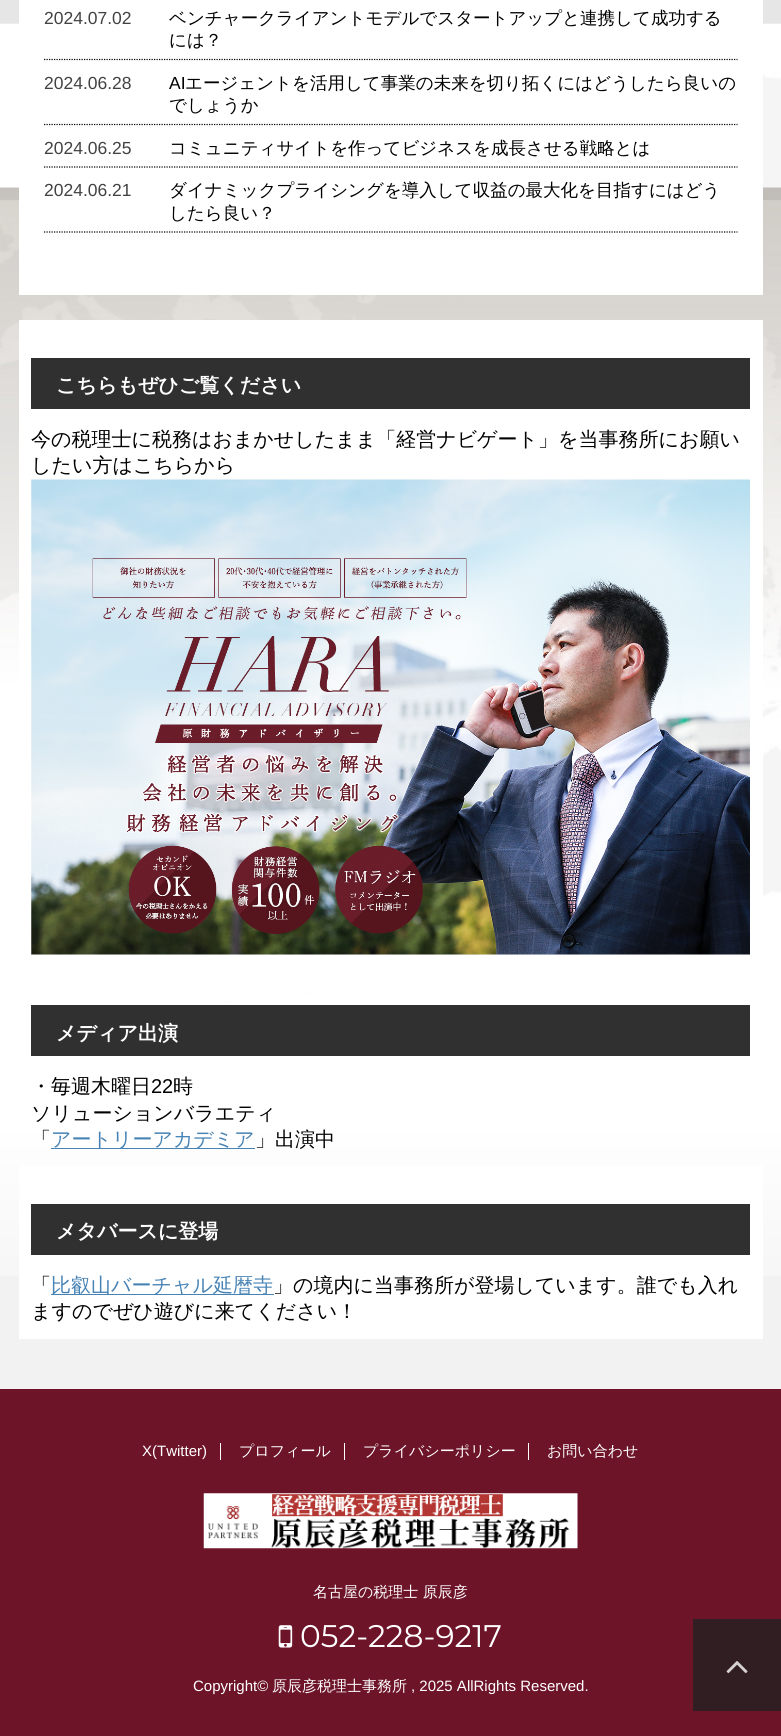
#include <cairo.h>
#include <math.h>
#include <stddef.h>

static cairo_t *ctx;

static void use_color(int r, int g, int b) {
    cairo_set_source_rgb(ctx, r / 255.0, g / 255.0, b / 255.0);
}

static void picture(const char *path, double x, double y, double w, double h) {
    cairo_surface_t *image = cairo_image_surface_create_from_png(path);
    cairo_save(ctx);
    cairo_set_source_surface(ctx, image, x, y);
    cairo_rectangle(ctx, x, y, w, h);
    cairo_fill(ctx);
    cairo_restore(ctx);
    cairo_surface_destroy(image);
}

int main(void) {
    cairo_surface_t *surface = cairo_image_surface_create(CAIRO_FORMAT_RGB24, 781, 1736);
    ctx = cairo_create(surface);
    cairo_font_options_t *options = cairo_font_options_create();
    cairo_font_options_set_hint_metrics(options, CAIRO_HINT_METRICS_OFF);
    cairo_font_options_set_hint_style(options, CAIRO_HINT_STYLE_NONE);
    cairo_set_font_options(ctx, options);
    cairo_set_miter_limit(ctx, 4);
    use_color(242, 242, 242);
    cairo_paint(ctx);
    picture("img1.png", 0, 0, 781, 1276);
    use_color(255, 255, 255);
    cairo_rectangle(ctx, 19, 0, 744, 295);
    cairo_fill(ctx);
    cairo_select_font_face(ctx, "Liberation Sans", CAIRO_FONT_SLANT_NORMAL, CAIRO_FONT_WEIGHT_NORMAL);
    cairo_set_font_size(ctx, 17.5);
    use_color(66, 66, 66);
    cairo_move_to(ctx, 44, 24);
    cairo_show_text(ctx, "2024.07.02");
    cairo_new_path(ctx);
    cairo_move_to(ctx, 44, 59.5);
    cairo_line_to(ctx, 737.5, 59.5);
    use_color(0, 0, 0);
    cairo_set_line_width(ctx, 1.2);
    cairo_set_dash(ctx, (double[]){1.25, 1.25}, 2, 0);
    cairo_stroke(ctx);
    cairo_select_font_face(ctx, "WenQuanYi Zen Hei Medium", CAIRO_FONT_SLANT_NORMAL, CAIRO_FONT_WEIGHT_NORMAL);
    cairo_move_to(ctx, 169, 24);
    cairo_show_text(ctx, "ベンチャークライアントモデルでスタートアップと連携して成功する");
    cairo_move_to(ctx, 169, 46);
    cairo_show_text(ctx, "には？");
    cairo_select_font_face(ctx, "Liberation Sans", CAIRO_FONT_SLANT_NORMAL, CAIRO_FONT_WEIGHT_NORMAL);
    use_color(66, 66, 66);
    cairo_move_to(ctx, 44, 89);
    cairo_show_text(ctx, "2024.06.28");
    cairo_new_path(ctx);
    cairo_move_to(ctx, 44, 124.5);
    cairo_line_to(ctx, 737.5, 124.5);
    use_color(0, 0, 0);
    cairo_stroke(ctx);
    cairo_move_to(ctx, 169, 89);
    cairo_show_text(ctx, "AI");
    cairo_select_font_face(ctx, "WenQuanYi Zen Hei Medium", CAIRO_FONT_SLANT_NORMAL, CAIRO_FONT_WEIGHT_NORMAL);
    cairo_move_to(ctx, 185, 89);
    cairo_show_text(ctx, "エージェントを活用して事業の未来を切り拓くにはどうしたら良いの");
    cairo_move_to(ctx, 169, 111);
    cairo_show_text(ctx, "でしょうか");
    cairo_select_font_face(ctx, "Liberation Sans", CAIRO_FONT_SLANT_NORMAL, CAIRO_FONT_WEIGHT_NORMAL);
    use_color(66, 66, 66);
    cairo_move_to(ctx, 44, 154);
    cairo_show_text(ctx, "2024.06.25");
    cairo_new_path(ctx);
    cairo_move_to(ctx, 44, 167);
    cairo_line_to(ctx, 737.5, 167);
    use_color(0, 0, 0);
    cairo_stroke(ctx);
    cairo_select_font_face(ctx, "WenQuanYi Zen Hei Medium", CAIRO_FONT_SLANT_NORMAL, CAIRO_FONT_WEIGHT_NORMAL);
    cairo_move_to(ctx, 169, 154);
    cairo_show_text(ctx, "コミュニティサイトを作ってビジネスを成長させる戦略とは");
    cairo_select_font_face(ctx, "Liberation Sans", CAIRO_FONT_SLANT_NORMAL, CAIRO_FONT_WEIGHT_NORMAL);
    use_color(66, 66, 66);
    cairo_move_to(ctx, 44, 196);
    cairo_show_text(ctx, "2024.06.21");
    cairo_new_path(ctx);
    cairo_move_to(ctx, 44, 232);
    cairo_line_to(ctx, 737.5, 232);
    use_color(0, 0, 0);
    cairo_stroke(ctx);
    cairo_select_font_face(ctx, "WenQuanYi Zen Hei Medium", CAIRO_FONT_SLANT_NORMAL, CAIRO_FONT_WEIGHT_NORMAL);
    cairo_move_to(ctx, 169, 196);
    cairo_show_text(ctx, "ダイナミックプライシングを導入して収益の最大化を目指すにはどう");
    cairo_move_to(ctx, 169, 219);
    cairo_show_text(ctx, "したら良い？");
    use_color(255, 255, 255);
    cairo_rectangle(ctx, 19, 320, 744, 622);
    cairo_fill(ctx);
    use_color(48, 48, 48);
    cairo_rectangle(ctx, 31, 358, 719, 51);
    cairo_fill(ctx);
    cairo_select_font_face(ctx, "WenQuanYi Zen Hei", CAIRO_FONT_SLANT_NORMAL, CAIRO_FONT_WEIGHT_BOLD);
    cairo_set_font_size(ctx, 20);
    use_color(255, 255, 255);
    cairo_move_to(ctx, 56, 392);
    cairo_show_text(ctx, "こちらもぜひご覧ください");
    cairo_select_font_face(ctx, "WenQuanYi Zen Hei Medium", CAIRO_FONT_SLANT_NORMAL, CAIRO_FONT_WEIGHT_NORMAL);
    use_color(0, 0, 0);
    cairo_move_to(ctx, 31, 446);
    cairo_show_text(ctx, "今の税理士に税務はおまかせしたまま「経営ナビゲート」を当事務所にお願い");
    cairo_move_to(ctx, 31, 472);
    cairo_show_text(ctx, "したい方はこちらから");
    picture("img2.png", 31, 479, 719, 476);
    use_color(255, 255, 255);
    cairo_rectangle(ctx, 230, 995, 222, 58);
    cairo_fill(ctx);
    use_color(48, 48, 48);
    cairo_rectangle(ctx, 31, 1005, 719, 51);
    cairo_fill(ctx);
    cairo_select_font_face(ctx, "WenQuanYi Zen Hei", CAIRO_FONT_SLANT_NORMAL, CAIRO_FONT_WEIGHT_BOLD);
    use_color(255, 255, 255);
    cairo_move_to(ctx, 56, 1040);
    cairo_show_text(ctx, "メディア出演");
    cairo_select_font_face(ctx, "WenQuanYi Zen Hei Medium", CAIRO_FONT_SLANT_NORMAL, CAIRO_FONT_WEIGHT_NORMAL);
    use_color(0, 0, 0);
    cairo_move_to(ctx, 31, 1093);
    cairo_show_text(ctx, "・毎週木曜日");
    cairo_select_font_face(ctx, "Liberation Sans", CAIRO_FONT_SLANT_NORMAL, CAIRO_FONT_WEIGHT_NORMAL);
    cairo_move_to(ctx, 151, 1093);
    cairo_show_text(ctx, "22");
    cairo_select_font_face(ctx, "WenQuanYi Zen Hei Medium", CAIRO_FONT_SLANT_NORMAL, CAIRO_FONT_WEIGHT_NORMAL);
    cairo_move_to(ctx, 173, 1093);
    cairo_show_text(ctx, "時");
    cairo_move_to(ctx, 31, 1120);
    cairo_show_text(ctx, "ソリューションバラエティ");
    cairo_move_to(ctx, 31, 1146);
    cairo_show_text(ctx, "「");
    use_color(70, 130, 180);
    cairo_rectangle(ctx, 51, 1148, 204, 1);
    cairo_fill(ctx);
    cairo_move_to(ctx, 51, 1146);
    cairo_show_text(ctx, "アートリーアカデミア");
    use_color(0, 0, 0);
    cairo_move_to(ctx, 255, 1146);
    cairo_show_text(ctx, "」出演中");
    use_color(255, 255, 255);
    cairo_rectangle(ctx, 19, 1166, 744, 173);
    cairo_fill(ctx);
    use_color(48, 48, 48);
    cairo_rectangle(ctx, 31, 1204, 719, 51);
    cairo_fill(ctx);
    cairo_select_font_face(ctx, "WenQuanYi Zen Hei", CAIRO_FONT_SLANT_NORMAL, CAIRO_FONT_WEIGHT_BOLD);
    use_color(255, 255, 255);
    cairo_move_to(ctx, 56, 1238);
    cairo_show_text(ctx, "メタバースに登場");
    cairo_select_font_face(ctx, "WenQuanYi Zen Hei Medium", CAIRO_FONT_SLANT_NORMAL, CAIRO_FONT_WEIGHT_NORMAL);
    use_color(0, 0, 0);
    cairo_move_to(ctx, 31, 1292);
    cairo_show_text(ctx, "「");
    use_color(70, 130, 180);
    cairo_rectangle(ctx, 51, 1294, 223, 1);
    cairo_fill(ctx);
    cairo_move_to(ctx, 51, 1292);
    cairo_show_text(ctx, "比叡山バーチャル延暦寺");
    use_color(0, 0, 0);
    cairo_move_to(ctx, 273, 1292);
    cairo_show_text(ctx, "」の境内に当事務所が登場しています。誰でも入れ");
    cairo_move_to(ctx, 31, 1318);
    cairo_show_text(ctx, "ますのでぜひ遊びに来てください！");
    use_color(109, 20, 41);
    cairo_rectangle(ctx, 0, 1389, 781, 347);
    cairo_fill(ctx);
    cairo_select_font_face(ctx, "Liberation Sans", CAIRO_FONT_SLANT_NORMAL, CAIRO_FONT_WEIGHT_NORMAL);
    cairo_set_font_size(ctx, 15);
    use_color(255, 255, 255);
    cairo_move_to(ctx, 142, 1456);
    cairo_show_text(ctx, "X(Twitter)");
    cairo_rectangle(ctx, 220, 1443, 1, 17);
    cairo_fill(ctx);
    cairo_select_font_face(ctx, "WenQuanYi Zen Hei Medium", CAIRO_FONT_SLANT_NORMAL, CAIRO_FONT_WEIGHT_NORMAL);
    cairo_move_to(ctx, 239, 1456);
    cairo_show_text(ctx, "プロフィール");
    cairo_rectangle(ctx, 344, 1443, 1, 17);
    cairo_fill(ctx);
    cairo_move_to(ctx, 363, 1456);
    cairo_show_text(ctx, "プライバシーポリシー");
    cairo_rectangle(ctx, 528, 1443, 1, 17);
    cairo_fill(ctx);
    cairo_move_to(ctx, 547, 1456);
    cairo_show_text(ctx, "お問い合わせ");
    picture("img3.png", 203, 1493, 375, 56);
    cairo_move_to(ctx, 313, 1597);
    cairo_show_text(ctx, "名古屋の税理士 原辰彦");
    picture("img4.png", 278, 1625, 15, 23);
    cairo_select_font_face(ctx, "Montserrat Thin", CAIRO_FONT_SLANT_NORMAL, CAIRO_FONT_WEIGHT_NORMAL);
    cairo_set_font_size(ctx, 31.25);
    cairo_move_to(ctx, 300, 1647);
    cairo_show_text(ctx, "052-228-9217");
    cairo_select_font_face(ctx, "Liberation Sans", CAIRO_FONT_SLANT_NORMAL, CAIRO_FONT_WEIGHT_NORMAL);
    cairo_set_font_size(ctx, 15);
    cairo_move_to(ctx, 193, 1691);
    cairo_show_text(ctx, "Copyright©");
    cairo_select_font_face(ctx, "WenQuanYi Zen Hei Medium", CAIRO_FONT_SLANT_NORMAL, CAIRO_FONT_WEIGHT_NORMAL);
    cairo_move_to(ctx, 272, 1691);
    cairo_show_text(ctx, "原辰彦税理士事務所");
    cairo_select_font_face(ctx, "Liberation Sans", CAIRO_FONT_SLANT_NORMAL, CAIRO_FONT_WEIGHT_NORMAL);
    cairo_move_to(ctx, 411, 1691);
    cairo_show_text(ctx, ", 2025 AllRights Reserved.");
    use_color(48, 30, 35);
    cairo_rectangle(ctx, 693, 1619, 88, 92);
    cairo_fill(ctx);
    picture("img5.png", 726, 1661, 22, 13);
    cairo_surface_write_to_png(surface, "result.png");
    cairo_font_options_destroy(options);
    cairo_destroy(ctx);
    cairo_surface_destroy(surface);
    return 0;
}
